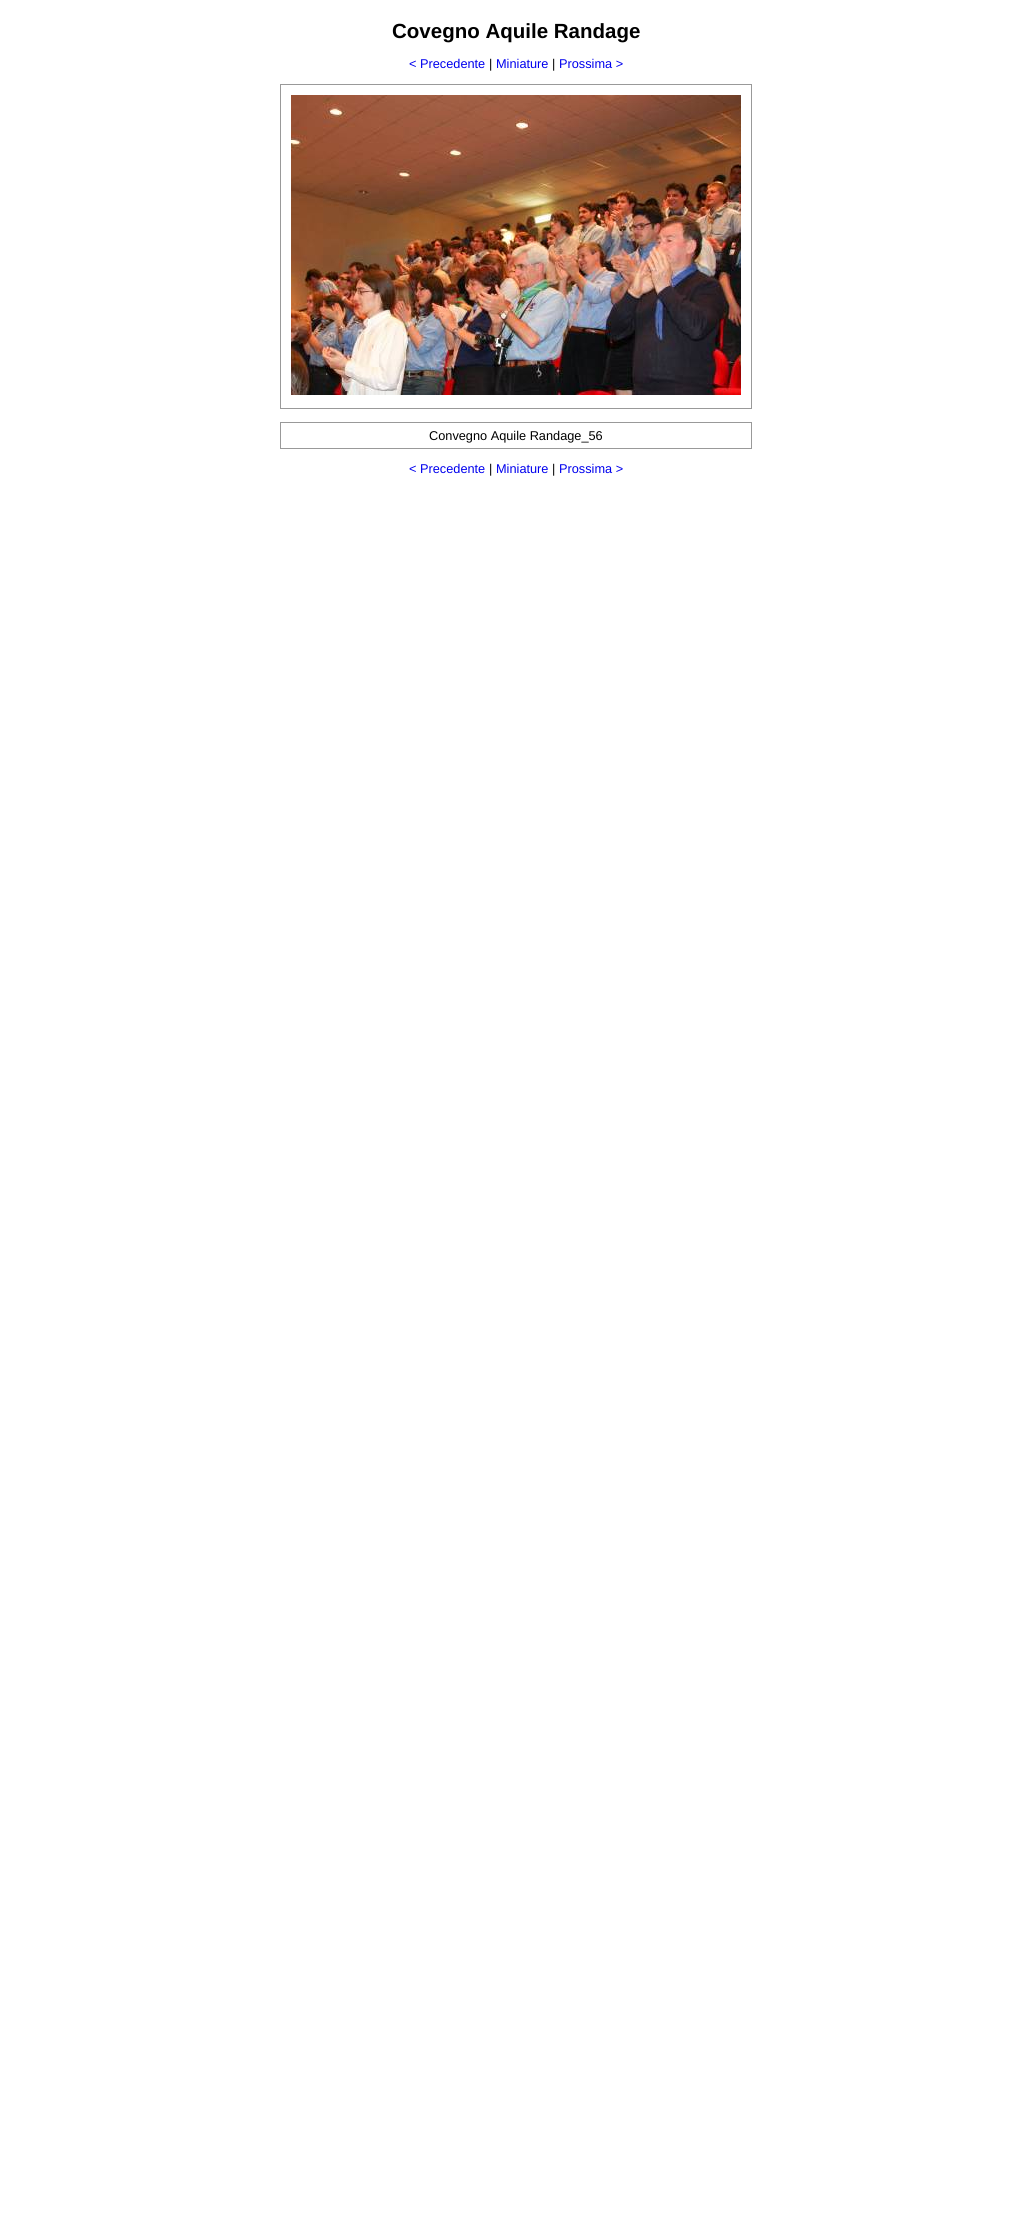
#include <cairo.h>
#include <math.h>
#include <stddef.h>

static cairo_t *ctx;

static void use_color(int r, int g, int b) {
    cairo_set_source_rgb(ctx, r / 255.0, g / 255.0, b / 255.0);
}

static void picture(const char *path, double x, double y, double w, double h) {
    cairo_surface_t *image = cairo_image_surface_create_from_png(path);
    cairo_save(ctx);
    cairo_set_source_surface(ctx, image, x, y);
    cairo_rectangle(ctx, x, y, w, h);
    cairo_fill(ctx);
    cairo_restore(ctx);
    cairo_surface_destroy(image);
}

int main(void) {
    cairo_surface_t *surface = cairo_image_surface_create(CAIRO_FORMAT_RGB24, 1032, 2239);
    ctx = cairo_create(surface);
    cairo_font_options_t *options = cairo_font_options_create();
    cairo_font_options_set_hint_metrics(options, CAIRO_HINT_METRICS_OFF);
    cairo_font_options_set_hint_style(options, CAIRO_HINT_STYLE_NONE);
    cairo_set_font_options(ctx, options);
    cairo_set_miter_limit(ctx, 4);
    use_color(255, 255, 255);
    cairo_paint(ctx);
    cairo_select_font_face(ctx, "Liberation Sans", CAIRO_FONT_SLANT_NORMAL, CAIRO_FONT_WEIGHT_BOLD);
    cairo_set_font_size(ctx, 20.5);
    use_color(0, 0, 0);
    cairo_move_to(ctx, 392, 38);
    cairo_show_text(ctx, "Covegno Aquile Randage");
    cairo_select_font_face(ctx, "Liberation Sans", CAIRO_FONT_SLANT_NORMAL, CAIRO_FONT_WEIGHT_NORMAL);
    cairo_set_font_size(ctx, 12.75);
    use_color(0, 0, 238);
    cairo_move_to(ctx, 409, 68);
    cairo_show_text(ctx, "< Precedente");
    use_color(0, 0, 0);
    cairo_move_to(ctx, 489, 68);
    cairo_show_text(ctx, "|");
    use_color(0, 0, 238);
    cairo_move_to(ctx, 496, 68);
    cairo_show_text(ctx, "Miniature");
    use_color(0, 0, 0);
    cairo_move_to(ctx, 552, 68);
    cairo_show_text(ctx, "|");
    use_color(0, 0, 238);
    cairo_move_to(ctx, 559, 68);
    cairo_show_text(ctx, "Prossima >");
    cairo_rectangle(ctx, 280.5, 84.5, 471, 324);
    use_color(153, 153, 153);
    cairo_set_line_width(ctx, 1);
    cairo_stroke(ctx);
    picture("img1.png", 291, 95, 450, 300);
    cairo_rectangle(ctx, 280.5, 422.5, 471, 26);
    cairo_stroke(ctx);
    use_color(0, 0, 0);
    cairo_move_to(ctx, 429, 440);
    cairo_show_text(ctx, "Convegno Aquile Randage_56");
    use_color(0, 0, 238);
    cairo_move_to(ctx, 409, 473);
    cairo_show_text(ctx, "< Precedente");
    use_color(0, 0, 0);
    cairo_move_to(ctx, 489, 473);
    cairo_show_text(ctx, "|");
    use_color(0, 0, 238);
    cairo_move_to(ctx, 496, 473);
    cairo_show_text(ctx, "Miniature");
    use_color(0, 0, 0);
    cairo_move_to(ctx, 552, 473);
    cairo_show_text(ctx, "|");
    use_color(0, 0, 238);
    cairo_move_to(ctx, 559, 473);
    cairo_show_text(ctx, "Prossima >");
    cairo_surface_write_to_png(surface, "result.png");
    cairo_font_options_destroy(options);
    cairo_destroy(ctx);
    cairo_surface_destroy(surface);
    return 0;
}
